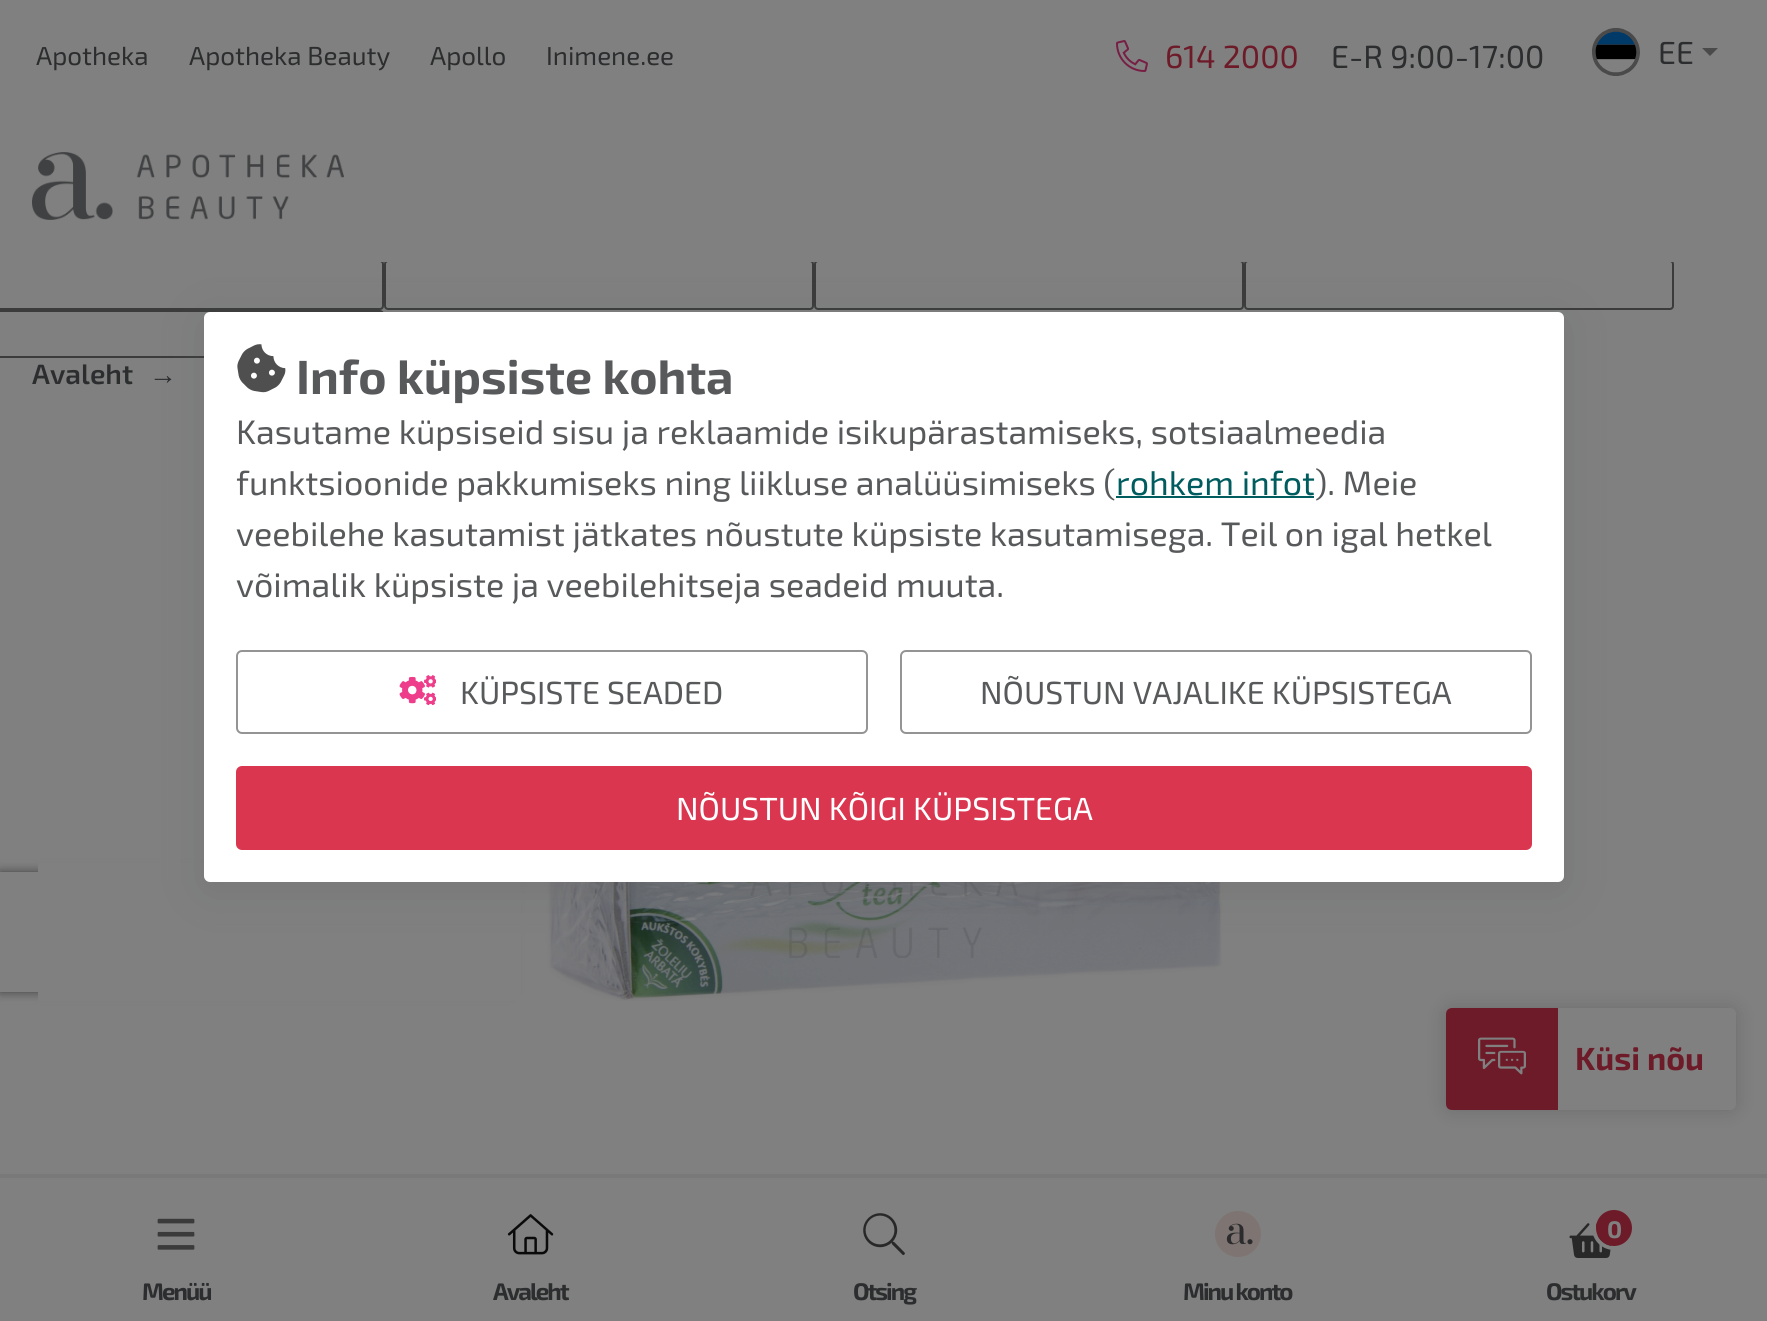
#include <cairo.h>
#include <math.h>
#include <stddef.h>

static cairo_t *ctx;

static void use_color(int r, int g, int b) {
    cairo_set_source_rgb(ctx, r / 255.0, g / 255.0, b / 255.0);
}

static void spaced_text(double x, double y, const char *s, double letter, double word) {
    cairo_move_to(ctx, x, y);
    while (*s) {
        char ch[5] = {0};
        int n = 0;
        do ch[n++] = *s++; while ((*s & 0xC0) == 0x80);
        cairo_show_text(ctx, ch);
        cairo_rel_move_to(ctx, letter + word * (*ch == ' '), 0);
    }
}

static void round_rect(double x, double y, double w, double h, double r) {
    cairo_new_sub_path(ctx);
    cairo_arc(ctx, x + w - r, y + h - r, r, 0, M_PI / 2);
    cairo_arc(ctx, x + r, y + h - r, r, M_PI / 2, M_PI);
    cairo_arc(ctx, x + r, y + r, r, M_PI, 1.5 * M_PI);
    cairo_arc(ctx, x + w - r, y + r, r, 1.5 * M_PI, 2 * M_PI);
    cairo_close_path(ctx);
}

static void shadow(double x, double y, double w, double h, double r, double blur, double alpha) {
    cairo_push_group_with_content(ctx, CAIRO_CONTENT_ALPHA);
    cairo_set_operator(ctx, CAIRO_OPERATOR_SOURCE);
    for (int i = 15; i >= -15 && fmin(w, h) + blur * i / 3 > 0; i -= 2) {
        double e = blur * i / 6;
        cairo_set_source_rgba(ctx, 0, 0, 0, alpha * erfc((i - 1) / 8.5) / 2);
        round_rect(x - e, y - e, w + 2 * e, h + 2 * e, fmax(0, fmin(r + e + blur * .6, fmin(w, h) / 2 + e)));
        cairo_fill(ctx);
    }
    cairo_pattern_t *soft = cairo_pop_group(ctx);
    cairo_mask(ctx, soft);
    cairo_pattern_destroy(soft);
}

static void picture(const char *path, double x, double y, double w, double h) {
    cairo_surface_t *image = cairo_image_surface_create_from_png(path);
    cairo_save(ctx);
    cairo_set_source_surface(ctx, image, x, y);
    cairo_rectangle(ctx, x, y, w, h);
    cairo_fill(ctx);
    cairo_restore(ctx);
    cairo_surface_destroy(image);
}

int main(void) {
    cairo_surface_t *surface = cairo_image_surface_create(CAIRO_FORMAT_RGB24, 1767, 1321);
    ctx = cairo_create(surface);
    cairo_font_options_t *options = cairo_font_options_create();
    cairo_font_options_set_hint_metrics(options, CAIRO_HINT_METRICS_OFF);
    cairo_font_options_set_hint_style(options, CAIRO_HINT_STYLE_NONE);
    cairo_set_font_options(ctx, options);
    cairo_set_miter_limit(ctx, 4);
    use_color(128, 128, 128);
    cairo_paint(ctx);
    cairo_select_font_face(ctx, "Exo 2", CAIRO_FONT_SLANT_NORMAL, CAIRO_FONT_WEIGHT_NORMAL);
    cairo_set_font_size(ctx, 26);
    use_color(44, 45, 46);
    cairo_move_to(ctx, 36, 65);
    cairo_show_text(ctx, "Apotheka");
    cairo_move_to(ctx, 189, 65);
    cairo_show_text(ctx, "Apotheka Beauty");
    cairo_move_to(ctx, 430, 65);
    cairo_show_text(ctx, "Apollo");
    cairo_move_to(ctx, 546, 65);
    cairo_show_text(ctx, "Inimene.ee");
    picture("img1.png", 1116, 40, 32, 32);
    cairo_set_font_size(ctx, 32);
    use_color(109, 27, 40);
    cairo_move_to(ctx, 1165, 68);
    cairo_show_text(ctx, "614 2000");
    use_color(44, 45, 46);
    cairo_move_to(ctx, 1331, 68);
    cairo_show_text(ctx, "E-R 9:00-17:00");
    picture("img2.png", 1592, 28, 48, 48);
    cairo_move_to(ctx, 1658, 64);
    cairo_show_text(ctx, "EE");
    use_color(74, 74, 74);
    cairo_new_path(ctx);
    cairo_move_to(ctx, 1702, 48);
    cairo_line_to(ctx, 1718, 48);
    cairo_line_to(ctx, 1710, 56);
    cairo_close_path(ctx);
    cairo_fill(ctx);
    cairo_select_font_face(ctx, "Exo 2 SemiBold", CAIRO_FONT_SLANT_NORMAL, CAIRO_FONT_WEIGHT_NORMAL);
    cairo_set_font_size(ctx, 28);
    use_color(44, 45, 46);
    cairo_move_to(ctx, 32, 384);
    cairo_show_text(ctx, "Avaleht");
    cairo_select_font_face(ctx, "Liberation Sans", CAIRO_FONT_SLANT_NORMAL, CAIRO_FONT_WEIGHT_BOLD);
    cairo_move_to(ctx, 149, 384);
    cairo_show_text(ctx, "→");
    cairo_save(ctx);
    cairo_set_fill_rule(ctx, CAIRO_FILL_RULE_EVEN_ODD);
    cairo_new_path(ctx);
    cairo_move_to(ctx, 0, 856);
    cairo_line_to(ctx, 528, 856);
    cairo_line_to(ctx, 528, 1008);
    cairo_line_to(ctx, 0, 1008);
    cairo_close_path(ctx);
    cairo_move_to(ctx, 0, 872);
    cairo_line_to(ctx, 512, 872);
    cairo_line_to(ctx, 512, 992);
    cairo_line_to(ctx, 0, 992);
    cairo_close_path(ctx);
    cairo_clip(ctx);
    use_color(64, 64, 64);
    shadow(0, 872, 512, 120, 0, 5, 1);
    cairo_restore(ctx);
    use_color(128, 128, 128);
    cairo_rectangle(ctx, 38, 863, 483, 138);
    cairo_fill(ctx);
    picture("img3.png", 543, 882, 679, 119);
    use_color(0, 0, 0);
    shadow(1446, 1008, 290, 102, 6, 10, 0.15);
    use_color(128, 128, 128);
    round_rect(1446, 1008, 290, 102, 6);
    cairo_fill(ctx);
    use_color(109, 27, 40);
    cairo_new_path(ctx);
    cairo_move_to(ctx, 1452, 1008);
    cairo_line_to(ctx, 1558, 1008);
    cairo_line_to(ctx, 1558, 1110);
    cairo_line_to(ctx, 1452, 1110);
    cairo_curve_to(ctx, 1448.5, 1110, 1446, 1107.5, 1446, 1104);
    cairo_line_to(ctx, 1446, 1014);
    cairo_curve_to(ctx, 1446, 1010.5, 1448.5, 1008, 1452, 1008);
    cairo_close_path(ctx);
    cairo_fill(ctx);
    picture("img4.png", 1478, 1037, 48, 38);
    cairo_select_font_face(ctx, "Exo 2", CAIRO_FONT_SLANT_NORMAL, CAIRO_FONT_WEIGHT_BOLD);
    cairo_set_font_size(ctx, 32);
    cairo_move_to(ctx, 1575, 1070);
    cairo_show_text(ctx, "Küsi nõu");
    round_rect(-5, 261, 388, 48, 3);
    use_color(59, 59, 59);
    cairo_stroke(ctx);
    round_rect(385, 261, 428, 48, 3);
    cairo_stroke(ctx);
    round_rect(815, 261, 428, 48, 3);
    cairo_stroke(ctx);
    round_rect(1245, 261, 428, 48, 3);
    cairo_stroke(ctx);
    use_color(128, 128, 128);
    cairo_rectangle(ctx, 0, 260, 1674, 2);
    cairo_fill(ctx);
    picture("img5.png", 32, 152, 312, 68);
    use_color(121, 121, 121);
    cairo_rectangle(ctx, 0, 1174, 1767, 4);
    cairo_fill(ctx);
    picture("img6.png", 157, 1218, 38, 32);
    cairo_set_font_size(ctx, 24);
    use_color(44, 45, 46);
    spaced_text(142, 1300, "Menüü", -2, 0);
    picture("img7.png", 507, 1214, 47, 41);
    spaced_text(493, 1300, "Avaleht", -2, 0);
    picture("img8.png", 863, 1213, 42, 43);
    spaced_text(853, 1300, "Otsing", -2, 0);
    picture("img9.png", 1215, 1211, 46, 46);
    spaced_text(1183, 1300, "Minu konto", -2, 0);
    picture("img10.png", 1569, 1223, 43, 35);
    cairo_arc(ctx, 1614, 1228, 20, 0, 2 * M_PI);
    use_color(128, 128, 128);
    cairo_set_line_width(ctx, 4);
    cairo_stroke(ctx);
    use_color(109, 27, 40);
    cairo_arc(ctx, 1614, 1228, 18, 0, 2 * M_PI);
    cairo_fill(ctx);
    use_color(128, 128, 128);
    spaced_text(1607, 1238, "0", -2, 0);
    use_color(44, 45, 46);
    spaced_text(1546, 1300, "Ostukorv", -2, 0);
    round_rect(-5, 311, 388, 46, 3);
    use_color(59, 59, 59);
    cairo_set_line_width(ctx, 2);
    cairo_stroke(ctx);
    use_color(87, 89, 91);
    shadow(204, 320, 1360, 570, 6, 20, 0.25);
    use_color(255, 255, 255);
    round_rect(204, 312, 1360, 570, 6);
    cairo_fill(ctx);
    picture("img11.png", 237, 344, 49, 49);
    cairo_set_font_size(ctx, 48);
    use_color(87, 89, 91);
    cairo_move_to(ctx, 296, 394);
    cairo_show_text(ctx, "Info küpsiste kohta");
    cairo_select_font_face(ctx, "Exo 2", CAIRO_FONT_SLANT_NORMAL, CAIRO_FONT_WEIGHT_NORMAL);
    cairo_set_font_size(ctx, 34);
    cairo_move_to(ctx, 236, 444);
    cairo_show_text(ctx, "Kasutame küpsiseid sisu ja reklaamide isikupärastamiseks, sotsiaalmeedia");
    cairo_move_to(ctx, 236, 495);
    cairo_show_text(ctx, "funktsioonide pakkumiseks ning liikluse analüüsimiseks (");
    use_color(0, 92, 94);
    cairo_move_to(ctx, 1116, 495);
    cairo_show_text(ctx, "rohkem infot");
    cairo_rectangle(ctx, 1116, 496, 198, 2);
    cairo_fill(ctx);
    use_color(87, 89, 91);
    cairo_move_to(ctx, 1315, 495);
    cairo_show_text(ctx, "). Meie");
    cairo_move_to(ctx, 236, 546);
    cairo_show_text(ctx, "veebilehe kasutamist jätkates nõustute küpsiste kasutamisega. Teil on igal hetkel");
    cairo_move_to(ctx, 236, 597);
    cairo_show_text(ctx, "võimalik küpsiste ja veebilehitseja seadeid muuta.");
    round_rect(237, 651, 630, 82, 5);
    use_color(148, 148, 148);
    cairo_stroke(ctx);
    picture("img12.png", 399, 675, 37, 31);
    cairo_set_font_size(ctx, 32);
    use_color(87, 89, 91);
    cairo_move_to(ctx, 460, 704);
    cairo_show_text(ctx, "KÜPSISTE SEADED");
    round_rect(901, 651, 630, 82, 5);
    use_color(148, 148, 148);
    cairo_stroke(ctx);
    use_color(87, 89, 91);
    cairo_move_to(ctx, 980, 704);
    cairo_show_text(ctx, "NÕUSTUN VAJALIKE KÜPSISTEGA");
    use_color(218, 54, 80);
    round_rect(237, 767, 1294, 82, 5);
    cairo_fill_preserve(ctx);
    cairo_stroke(ctx);
    use_color(255, 255, 255);
    cairo_move_to(ctx, 676, 820);
    cairo_show_text(ctx, "NÕUSTUN KÕIGI KÜPSISTEGA");
    cairo_surface_write_to_png(surface, "result.png");
    cairo_font_options_destroy(options);
    cairo_destroy(ctx);
    cairo_surface_destroy(surface);
    return 0;
}
